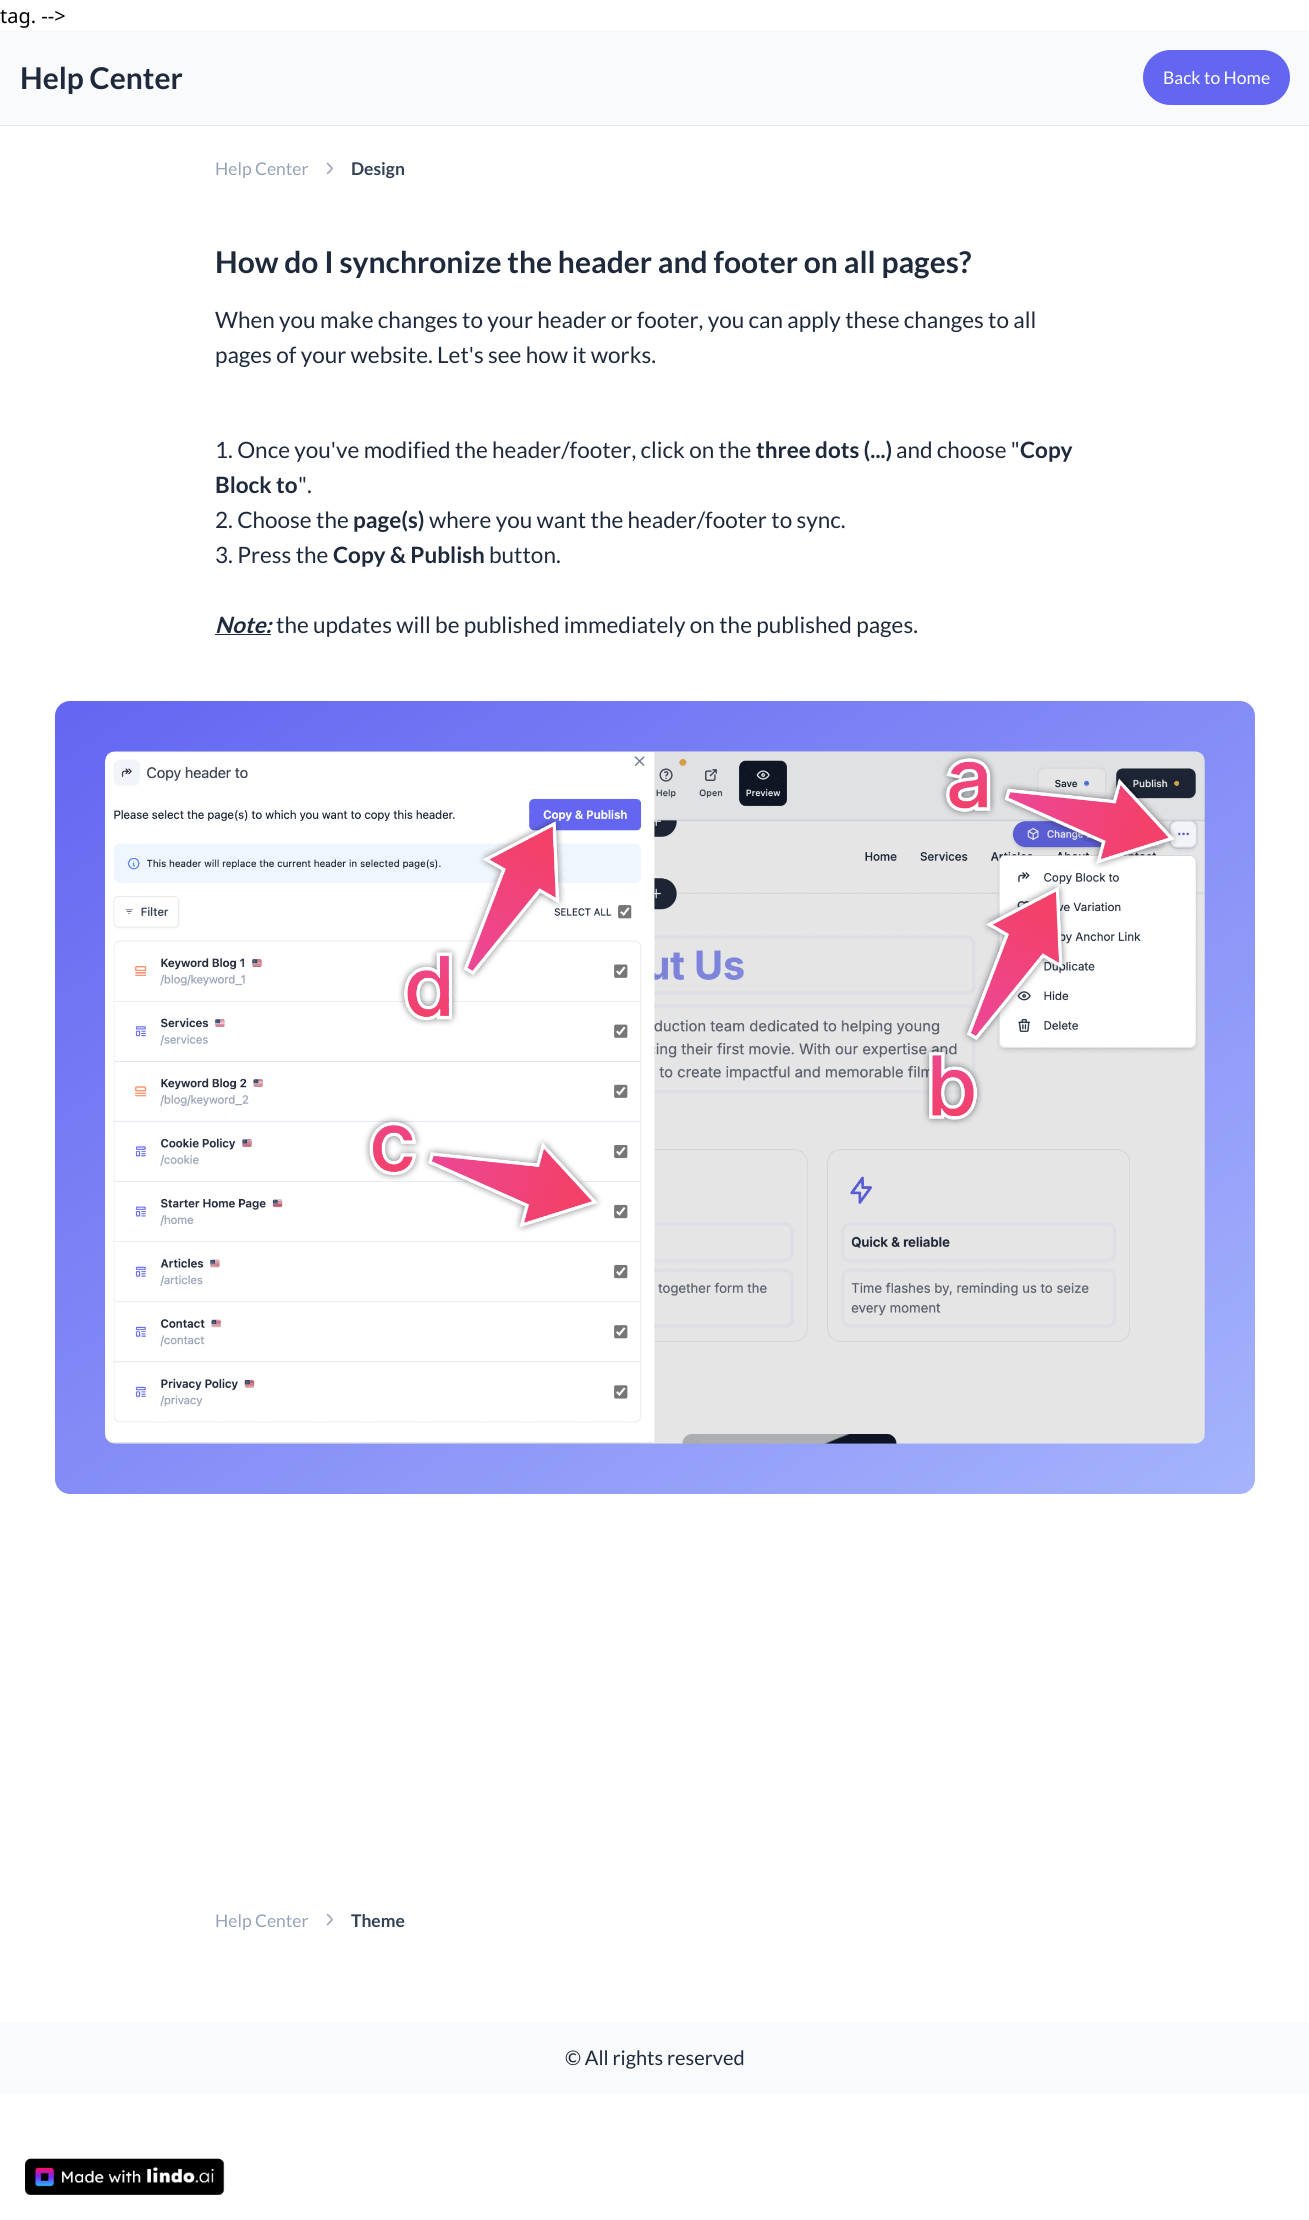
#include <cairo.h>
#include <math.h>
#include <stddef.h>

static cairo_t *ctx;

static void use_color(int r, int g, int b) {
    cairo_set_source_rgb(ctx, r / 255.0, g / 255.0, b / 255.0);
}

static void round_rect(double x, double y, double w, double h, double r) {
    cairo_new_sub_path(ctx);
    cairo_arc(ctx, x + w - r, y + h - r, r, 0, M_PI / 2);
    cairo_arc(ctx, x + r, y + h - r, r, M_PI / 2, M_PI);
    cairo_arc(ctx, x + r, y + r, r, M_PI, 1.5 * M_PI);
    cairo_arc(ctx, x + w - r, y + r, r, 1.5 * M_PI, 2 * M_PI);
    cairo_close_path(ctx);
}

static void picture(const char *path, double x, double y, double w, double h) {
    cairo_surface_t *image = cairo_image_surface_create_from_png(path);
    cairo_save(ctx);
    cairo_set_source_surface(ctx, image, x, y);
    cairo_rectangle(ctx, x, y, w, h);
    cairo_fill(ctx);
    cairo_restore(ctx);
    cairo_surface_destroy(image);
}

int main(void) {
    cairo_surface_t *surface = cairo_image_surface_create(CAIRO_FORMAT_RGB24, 1309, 2220);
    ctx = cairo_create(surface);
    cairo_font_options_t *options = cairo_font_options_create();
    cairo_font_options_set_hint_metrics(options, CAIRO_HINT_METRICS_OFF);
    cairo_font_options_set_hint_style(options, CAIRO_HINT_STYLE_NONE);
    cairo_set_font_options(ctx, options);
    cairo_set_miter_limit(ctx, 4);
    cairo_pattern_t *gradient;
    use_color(255, 255, 255);
    cairo_paint(ctx);
    cairo_select_font_face(ctx, "Noto Sans", CAIRO_FONT_SLANT_NORMAL, CAIRO_FONT_WEIGHT_NORMAL);
    cairo_set_font_size(ctx, 20);
    use_color(0, 0, 0);
    cairo_move_to(ctx, 0, 23);
    cairo_show_text(ctx, "tag. -->");
    use_color(248, 250, 252);
    cairo_rectangle(ctx, 0, 30, 1309, 95);
    cairo_fill(ctx);
    use_color(226, 232, 240);
    cairo_rectangle(ctx, 0, 125, 1309, 1);
    cairo_fill(ctx);
    cairo_select_font_face(ctx, "Lato", CAIRO_FONT_SLANT_NORMAL, CAIRO_FONT_WEIGHT_BOLD);
    cairo_set_font_size(ctx, 30);
    use_color(30, 41, 59);
    cairo_move_to(ctx, 20, 89);
    cairo_show_text(ctx, "Help Center");
    use_color(99, 102, 241);
    round_rect(1143, 50, 147, 55, 27.5);
    cairo_fill(ctx);
    cairo_select_font_face(ctx, "Lato", CAIRO_FONT_SLANT_NORMAL, CAIRO_FONT_WEIGHT_NORMAL);
    cairo_set_font_size(ctx, 17.5);
    use_color(255, 255, 255);
    cairo_move_to(ctx, 1163, 84);
    cairo_show_text(ctx, "Back to Home");
    use_color(148, 163, 184);
    cairo_move_to(ctx, 215, 175);
    cairo_show_text(ctx, "Help Center");
    cairo_new_path(ctx);
    cairo_move_to(ctx, 327.5, 163.5);
    cairo_curve_to(ctx, 333.5, 170, 333.5, 167, 327.5, 173.5);
    use_color(156, 163, 175);
    cairo_set_line_width(ctx, 1.6);
    cairo_set_line_cap(ctx, CAIRO_LINE_CAP_ROUND);
    cairo_stroke(ctx);
    cairo_select_font_face(ctx, "Lato", CAIRO_FONT_SLANT_NORMAL, CAIRO_FONT_WEIGHT_BOLD);
    use_color(51, 65, 85);
    cairo_move_to(ctx, 351, 175);
    cairo_show_text(ctx, "Design");
    cairo_set_font_size(ctx, 30);
    use_color(30, 41, 59);
    cairo_move_to(ctx, 215, 273);
    cairo_show_text(ctx, "How do I synchronize the header and footer on all pages?");
    cairo_select_font_face(ctx, "Lato", CAIRO_FONT_SLANT_NORMAL, CAIRO_FONT_WEIGHT_NORMAL);
    cairo_set_font_size(ctx, 22.5);
    cairo_move_to(ctx, 215, 328);
    cairo_show_text(ctx, "When you make changes to your header or footer, you can apply these changes to all");
    cairo_move_to(ctx, 215, 363);
    cairo_show_text(ctx, "pages of your website. Let's see how it works.");
    cairo_move_to(ctx, 215, 458);
    cairo_show_text(ctx, "1. Once you've modified the header/footer, click on the");
    cairo_select_font_face(ctx, "Lato", CAIRO_FONT_SLANT_NORMAL, CAIRO_FONT_WEIGHT_BOLD);
    cairo_move_to(ctx, 756, 458);
    cairo_show_text(ctx, "three dots (...)");
    cairo_select_font_face(ctx, "Lato", CAIRO_FONT_SLANT_NORMAL, CAIRO_FONT_WEIGHT_NORMAL);
    cairo_move_to(ctx, 896, 458);
    cairo_show_text(ctx, "and choose \"");
    cairo_select_font_face(ctx, "Lato", CAIRO_FONT_SLANT_NORMAL, CAIRO_FONT_WEIGHT_BOLD);
    cairo_move_to(ctx, 1020, 458);
    cairo_show_text(ctx, "Copy");
    cairo_move_to(ctx, 215, 493);
    cairo_show_text(ctx, "Block to");
    cairo_select_font_face(ctx, "Lato", CAIRO_FONT_SLANT_NORMAL, CAIRO_FONT_WEIGHT_NORMAL);
    cairo_move_to(ctx, 298, 493);
    cairo_show_text(ctx, "\".");
    cairo_move_to(ctx, 215, 528);
    cairo_show_text(ctx, "2. Choose the");
    cairo_select_font_face(ctx, "Lato", CAIRO_FONT_SLANT_NORMAL, CAIRO_FONT_WEIGHT_BOLD);
    cairo_move_to(ctx, 353, 528);
    cairo_show_text(ctx, "page(s)");
    cairo_select_font_face(ctx, "Lato", CAIRO_FONT_SLANT_NORMAL, CAIRO_FONT_WEIGHT_NORMAL);
    cairo_move_to(ctx, 429, 528);
    cairo_show_text(ctx, "where you want the header/footer to sync.");
    cairo_move_to(ctx, 215, 563);
    cairo_show_text(ctx, "3. Press the");
    cairo_select_font_face(ctx, "Lato", CAIRO_FONT_SLANT_NORMAL, CAIRO_FONT_WEIGHT_BOLD);
    cairo_move_to(ctx, 333, 563);
    cairo_show_text(ctx, "Copy & Publish");
    cairo_select_font_face(ctx, "Lato", CAIRO_FONT_SLANT_NORMAL, CAIRO_FONT_WEIGHT_NORMAL);
    cairo_move_to(ctx, 489, 563);
    cairo_show_text(ctx, "button.");
    cairo_select_font_face(ctx, "Lato", CAIRO_FONT_SLANT_ITALIC, CAIRO_FONT_WEIGHT_BOLD);
    cairo_move_to(ctx, 215, 633);
    cairo_show_text(ctx, "Note:");
    cairo_rectangle(ctx, 215, 634, 56, 1);
    cairo_fill(ctx);
    cairo_select_font_face(ctx, "Lato", CAIRO_FONT_SLANT_NORMAL, CAIRO_FONT_WEIGHT_NORMAL);
    cairo_move_to(ctx, 276, 633);
    cairo_show_text(ctx, "the updates will be published immediately on the published pages.");
    gradient = cairo_pattern_create_linear(291, 546, 1019, 1649);
    cairo_pattern_add_color_stop_rgba(gradient, 0, 0.388, 0.4, 0.945, 1);
    cairo_pattern_add_color_stop_rgba(gradient, 1, 0.647, 0.706, 0.988, 1);
    cairo_set_source(ctx, gradient);
    cairo_pattern_destroy(gradient);
    round_rect(55, 701, 1200, 793, 15);
    cairo_fill(ctx);
    picture("img1.png", 105, 751, 1100, 693);
    cairo_set_font_size(ctx, 17.5);
    use_color(148, 163, 184);
    cairo_move_to(ctx, 215, 1927);
    cairo_show_text(ctx, "Help Center");
    cairo_new_path(ctx);
    cairo_move_to(ctx, 327.5, 1914.5);
    cairo_curve_to(ctx, 333.5, 1921, 333.5, 1918, 327.5, 1924.5);
    use_color(156, 163, 175);
    cairo_stroke(ctx);
    cairo_select_font_face(ctx, "Lato", CAIRO_FONT_SLANT_NORMAL, CAIRO_FONT_WEIGHT_BOLD);
    use_color(51, 65, 85);
    cairo_move_to(ctx, 351, 1927);
    cairo_show_text(ctx, "Theme");
    use_color(248, 250, 252);
    cairo_rectangle(ctx, 0, 2023, 1309, 70);
    cairo_fill(ctx);
    cairo_select_font_face(ctx, "Lato", CAIRO_FONT_SLANT_NORMAL, CAIRO_FONT_WEIGHT_NORMAL);
    cairo_set_font_size(ctx, 20);
    use_color(30, 41, 59);
    cairo_move_to(ctx, 565, 2065);
    cairo_show_text(ctx, "© All rights reserved");
    picture("img2.png", 25, 2158, 200, 37);
    cairo_surface_write_to_png(surface, "result.png");
    cairo_font_options_destroy(options);
    cairo_destroy(ctx);
    cairo_surface_destroy(surface);
    return 0;
}
